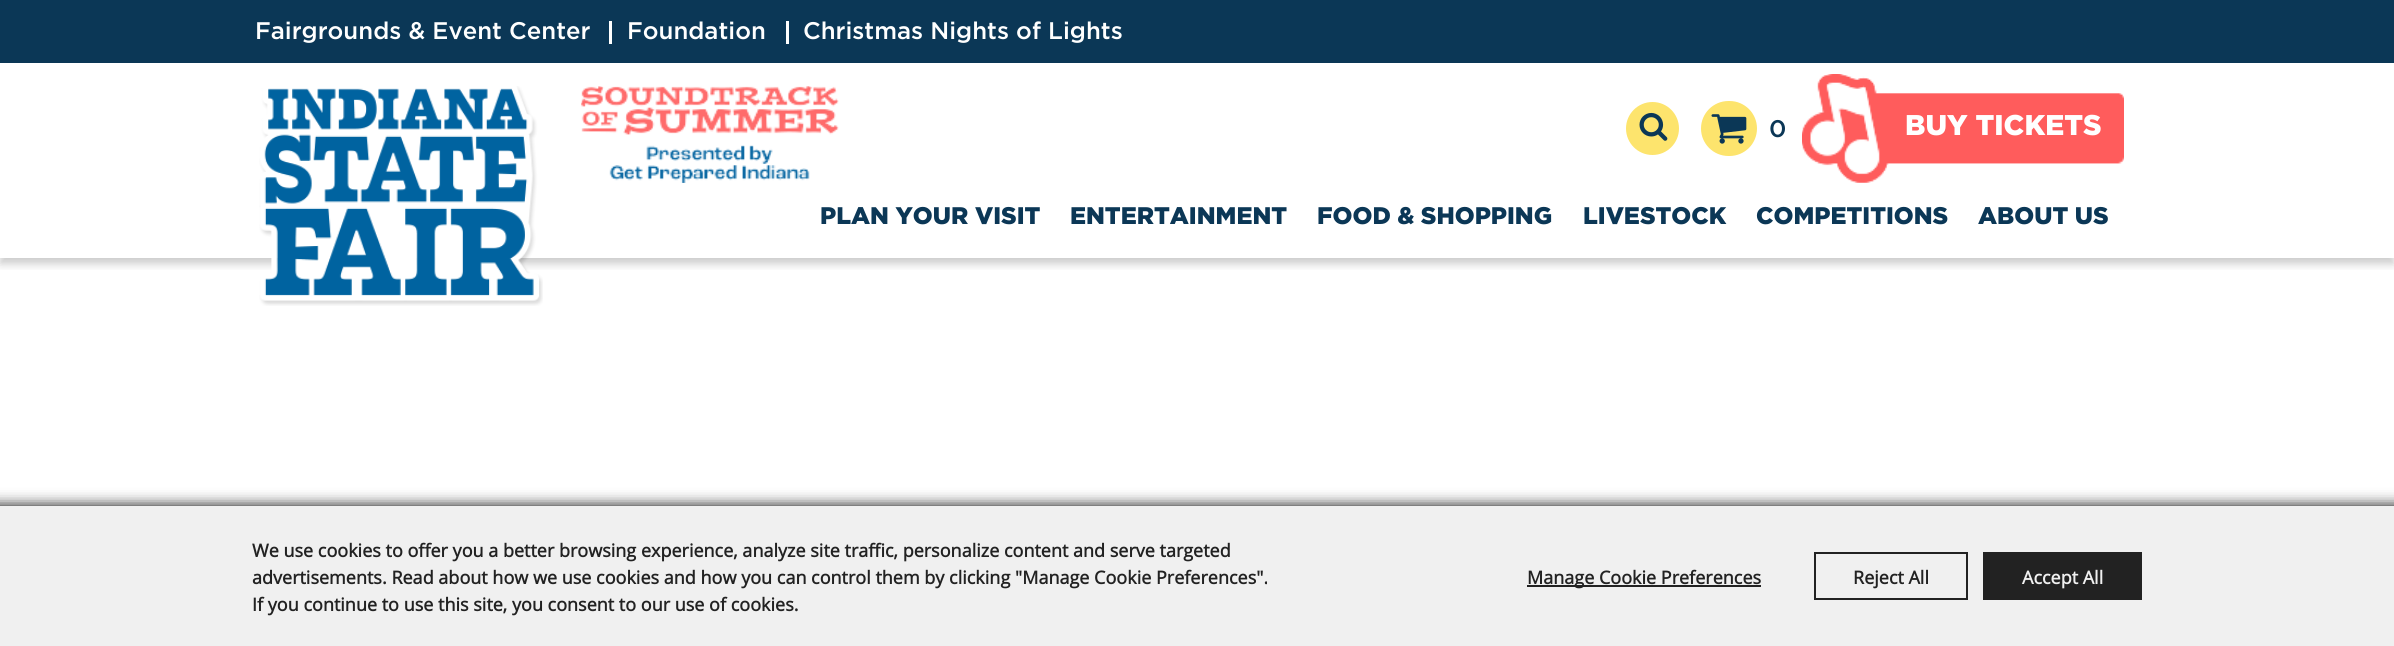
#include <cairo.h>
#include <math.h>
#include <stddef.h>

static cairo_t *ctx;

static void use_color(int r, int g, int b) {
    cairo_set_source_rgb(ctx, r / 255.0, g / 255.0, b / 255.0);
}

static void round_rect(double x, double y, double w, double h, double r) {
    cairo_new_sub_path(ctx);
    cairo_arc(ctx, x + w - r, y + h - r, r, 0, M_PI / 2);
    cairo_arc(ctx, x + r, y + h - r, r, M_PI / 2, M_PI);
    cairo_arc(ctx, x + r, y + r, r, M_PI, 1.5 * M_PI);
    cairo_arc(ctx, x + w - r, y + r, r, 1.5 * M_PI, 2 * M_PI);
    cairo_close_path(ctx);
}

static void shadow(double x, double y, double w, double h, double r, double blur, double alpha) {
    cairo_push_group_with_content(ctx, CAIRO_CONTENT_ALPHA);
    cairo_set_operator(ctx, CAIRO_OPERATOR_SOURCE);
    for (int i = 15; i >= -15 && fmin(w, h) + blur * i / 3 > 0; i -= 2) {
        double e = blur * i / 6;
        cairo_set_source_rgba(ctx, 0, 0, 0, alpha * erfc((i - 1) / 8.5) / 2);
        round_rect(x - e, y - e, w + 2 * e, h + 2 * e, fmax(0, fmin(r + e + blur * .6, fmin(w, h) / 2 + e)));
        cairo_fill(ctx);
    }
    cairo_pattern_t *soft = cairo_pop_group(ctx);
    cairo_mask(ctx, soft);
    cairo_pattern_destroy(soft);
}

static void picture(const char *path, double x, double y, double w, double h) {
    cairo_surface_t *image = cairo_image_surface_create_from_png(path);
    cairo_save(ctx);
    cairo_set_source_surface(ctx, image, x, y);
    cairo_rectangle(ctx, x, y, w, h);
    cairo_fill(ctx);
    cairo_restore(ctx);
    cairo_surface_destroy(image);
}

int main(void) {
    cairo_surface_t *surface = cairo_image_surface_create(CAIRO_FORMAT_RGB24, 2394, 646);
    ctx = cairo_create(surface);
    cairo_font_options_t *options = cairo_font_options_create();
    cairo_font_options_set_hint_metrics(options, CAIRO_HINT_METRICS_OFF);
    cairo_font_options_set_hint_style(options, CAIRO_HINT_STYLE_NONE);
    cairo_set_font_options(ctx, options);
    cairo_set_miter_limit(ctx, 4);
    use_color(255, 255, 255);
    cairo_paint(ctx);
    cairo_save(ctx);
    cairo_rectangle(ctx, 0, 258, 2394, 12);
    cairo_clip(ctx);
    use_color(0, 0, 0);
    shadow(0, 6, 2394, 258, 0, 4.5, 0.2);
    cairo_restore(ctx);
    use_color(11, 55, 86);
    cairo_rectangle(ctx, 0, 0, 2394, 63);
    cairo_fill(ctx);
    cairo_select_font_face(ctx, "Gotham Medium", CAIRO_FONT_SLANT_NORMAL, CAIRO_FONT_WEIGHT_NORMAL);
    cairo_set_font_size(ctx, 24);
    use_color(255, 255, 255);
    cairo_move_to(ctx, 255, 39);
    cairo_show_text(ctx, "Fairgrounds & Event Center");
    cairo_rectangle(ctx, 609, 21, 3, 23);
    cairo_fill(ctx);
    cairo_move_to(ctx, 627, 39);
    cairo_show_text(ctx, "Foundation");
    cairo_rectangle(ctx, 786, 21, 3, 23);
    cairo_fill(ctx);
    cairo_move_to(ctx, 803, 39);
    cairo_show_text(ctx, "Christmas Nights of Lights");
    picture("img1.png", 259, 86, 284, 220);
    picture("img2.png", 581, 86, 258, 97);
    use_color(253, 228, 109);
    cairo_arc(ctx, 1652.5, 128.5, 26.5, 0, 2 * M_PI);
    cairo_fill(ctx);
    picture("img3.png", 1639, 112, 29, 29);
    round_rect(1701, 101, 56, 55, 27.5);
    cairo_fill(ctx);
    picture("img4.png", 1711, 114, 36, 30);
    use_color(11, 55, 86);
    cairo_move_to(ctx, 1769, 137);
    cairo_show_text(ctx, "0");
    picture("img5.png", 1802, 74, 322, 109);
    cairo_select_font_face(ctx, "Gotham Black", CAIRO_FONT_SLANT_NORMAL, CAIRO_FONT_WEIGHT_NORMAL);
    cairo_set_font_size(ctx, 28.5);
    use_color(255, 255, 255);
    cairo_move_to(ctx, 1905, 135);
    cairo_show_text(ctx, "BUY TICKETS");
    cairo_set_font_size(ctx, 24);
    use_color(11, 55, 86);
    cairo_move_to(ctx, 820, 224);
    cairo_show_text(ctx, "PLAN YOUR VISIT");
    cairo_move_to(ctx, 1070, 224);
    cairo_show_text(ctx, "ENTERTAINMENT");
    cairo_move_to(ctx, 1317, 224);
    cairo_show_text(ctx, "FOOD & SHOPPING");
    cairo_move_to(ctx, 1583, 224);
    cairo_show_text(ctx, "LIVESTOCK");
    cairo_move_to(ctx, 1756, 224);
    cairo_show_text(ctx, "COMPETITIONS");
    cairo_move_to(ctx, 1978, 224);
    cairo_show_text(ctx, "ABOUT US");
    use_color(0, 0, 0);
    shadow(-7, 506, 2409, 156, 0, 7.5, 1);
    use_color(240, 240, 240);
    cairo_rectangle(ctx, 0, 506, 2394, 140);
    cairo_fill(ctx);
    cairo_select_font_face(ctx, "Open Sans", CAIRO_FONT_SLANT_NORMAL, CAIRO_FONT_WEIGHT_BOLD);
    cairo_set_font_size(ctx, 18);
    use_color(34, 34, 34);
    cairo_move_to(ctx, 252, 557);
    cairo_show_text(ctx, "We use cookies to offer you a better browsing experience, analyze site traffic, personalize content and serve targeted");
    cairo_move_to(ctx, 252, 584);
    cairo_show_text(ctx, "advertisements. Read about how we use cookies and how you can control them by clicking \"Manage Cookie Preferences\".");
    cairo_move_to(ctx, 252, 611);
    cairo_show_text(ctx, "If you continue to use this site, you consent to our use of cookies.");
    cairo_rectangle(ctx, 1527, 585, 234, 2);
    cairo_fill(ctx);
    cairo_move_to(ctx, 1527, 584);
    cairo_show_text(ctx, "Manage Cookie Preferences");
    cairo_rectangle(ctx, 1815, 553, 152, 46);
    cairo_stroke(ctx);
    cairo_move_to(ctx, 1853, 584);
    cairo_show_text(ctx, "Reject All");
    cairo_rectangle(ctx, 1983, 552, 159, 48);
    cairo_fill(ctx);
    use_color(240, 240, 240);
    cairo_move_to(ctx, 2022, 584);
    cairo_show_text(ctx, "Accept All");
    cairo_surface_write_to_png(surface, "result.png");
    cairo_font_options_destroy(options);
    cairo_destroy(ctx);
    cairo_surface_destroy(surface);
    return 0;
}
